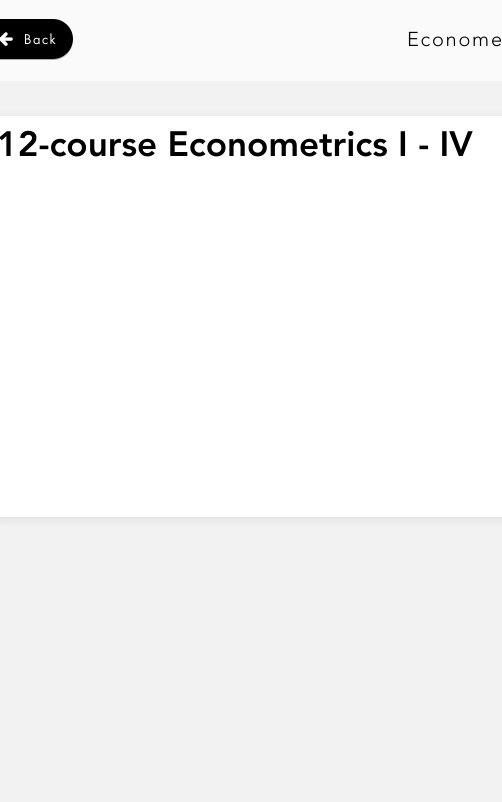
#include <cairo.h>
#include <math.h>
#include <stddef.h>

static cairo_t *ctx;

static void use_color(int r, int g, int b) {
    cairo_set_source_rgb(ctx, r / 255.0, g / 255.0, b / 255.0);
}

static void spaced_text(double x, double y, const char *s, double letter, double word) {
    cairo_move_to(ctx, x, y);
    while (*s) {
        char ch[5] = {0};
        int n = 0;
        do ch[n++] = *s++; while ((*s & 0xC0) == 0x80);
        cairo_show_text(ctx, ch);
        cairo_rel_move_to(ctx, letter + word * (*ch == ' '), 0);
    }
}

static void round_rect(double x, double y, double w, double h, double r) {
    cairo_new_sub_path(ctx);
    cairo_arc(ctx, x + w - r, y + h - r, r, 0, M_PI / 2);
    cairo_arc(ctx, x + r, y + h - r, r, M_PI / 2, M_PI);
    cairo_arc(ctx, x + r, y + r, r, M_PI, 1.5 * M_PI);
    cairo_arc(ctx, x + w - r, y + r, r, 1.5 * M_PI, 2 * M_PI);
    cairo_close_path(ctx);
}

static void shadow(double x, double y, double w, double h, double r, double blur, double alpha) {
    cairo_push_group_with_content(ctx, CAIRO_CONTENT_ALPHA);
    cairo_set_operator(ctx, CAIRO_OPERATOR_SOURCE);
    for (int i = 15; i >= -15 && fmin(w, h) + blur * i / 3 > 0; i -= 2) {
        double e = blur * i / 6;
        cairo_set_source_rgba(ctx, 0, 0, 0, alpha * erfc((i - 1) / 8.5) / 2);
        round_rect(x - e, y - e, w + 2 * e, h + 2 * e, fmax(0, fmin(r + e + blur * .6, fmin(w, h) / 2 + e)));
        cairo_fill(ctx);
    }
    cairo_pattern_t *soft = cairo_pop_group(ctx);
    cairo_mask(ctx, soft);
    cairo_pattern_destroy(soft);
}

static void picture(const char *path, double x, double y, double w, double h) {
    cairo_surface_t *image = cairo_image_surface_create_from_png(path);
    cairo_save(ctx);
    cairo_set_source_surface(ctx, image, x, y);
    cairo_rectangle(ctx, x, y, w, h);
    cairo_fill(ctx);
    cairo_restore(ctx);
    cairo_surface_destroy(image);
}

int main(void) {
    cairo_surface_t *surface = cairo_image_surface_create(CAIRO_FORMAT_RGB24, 502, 802);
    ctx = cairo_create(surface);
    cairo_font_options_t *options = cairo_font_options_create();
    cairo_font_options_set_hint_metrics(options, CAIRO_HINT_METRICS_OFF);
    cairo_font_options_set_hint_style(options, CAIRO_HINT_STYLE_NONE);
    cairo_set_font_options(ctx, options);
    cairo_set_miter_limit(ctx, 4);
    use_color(242, 242, 242);
    cairo_paint(ctx);
    use_color(250, 250, 250);
    cairo_rectangle(ctx, 0, 0, 502, 81);
    cairo_fill(ctx);
    use_color(172, 175, 178);
    cairo_new_path(ctx);
    cairo_move_to(ctx, -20, 40);
    cairo_curve_to(ctx, -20, 51, -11, 60, 0, 60);
    cairo_line_to(ctx, 53, 60);
    cairo_curve_to(ctx, 64, 60, 73, 51, 73, 40);
    cairo_curve_to(ctx, 73, 50, 64, 59, 53, 59);
    cairo_line_to(ctx, 0, 59);
    cairo_curve_to(ctx, -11, 59, -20, 50, -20, 40);
    cairo_close_path(ctx);
    cairo_fill(ctx);
    use_color(0, 0, 0);
    cairo_new_path(ctx);
    cairo_move_to(ctx, 0, 19);
    cairo_line_to(ctx, 53, 19);
    cairo_curve_to(ctx, 64, 19, 73, 28, 73, 39);
    cairo_curve_to(ctx, 73, 50, 64, 59, 53, 59);
    cairo_line_to(ctx, 0, 59);
    cairo_close_path(ctx);
    cairo_fill(ctx);
    picture("img1.png", 0, 32, 13, 14);
    cairo_select_font_face(ctx, "futura", CAIRO_FONT_SLANT_NORMAL, CAIRO_FONT_WEIGHT_NORMAL);
    cairo_set_font_size(ctx, 13);
    use_color(255, 255, 255);
    spaced_text(24, 44, "Back", 1.5, 0);
    cairo_select_font_face(ctx, "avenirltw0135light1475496 Light", CAIRO_FONT_SLANT_NORMAL, CAIRO_FONT_WEIGHT_NORMAL);
    cairo_set_font_size(ctx, 20);
    use_color(0, 0, 0);
    spaced_text(407, 46, "Econome", 1.75, 0);
    use_color(0, 0, 0);
    shadow(-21, 117, 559, 403, 21, 5, 0.08);
    use_color(255, 255, 255);
    cairo_rectangle(ctx, 0, 116, 502, 401);
    cairo_fill(ctx);
    cairo_select_font_face(ctx, "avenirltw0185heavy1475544 Black", CAIRO_FONT_SLANT_NORMAL, CAIRO_FONT_WEIGHT_NORMAL);
    cairo_set_font_size(ctx, 35);
    use_color(0, 0, 0);
    cairo_move_to(ctx, -3, 156);
    cairo_show_text(ctx, "12-course Econometrics I - IV");
    cairo_surface_write_to_png(surface, "result.png");
    cairo_font_options_destroy(options);
    cairo_destroy(ctx);
    cairo_surface_destroy(surface);
    return 0;
}
